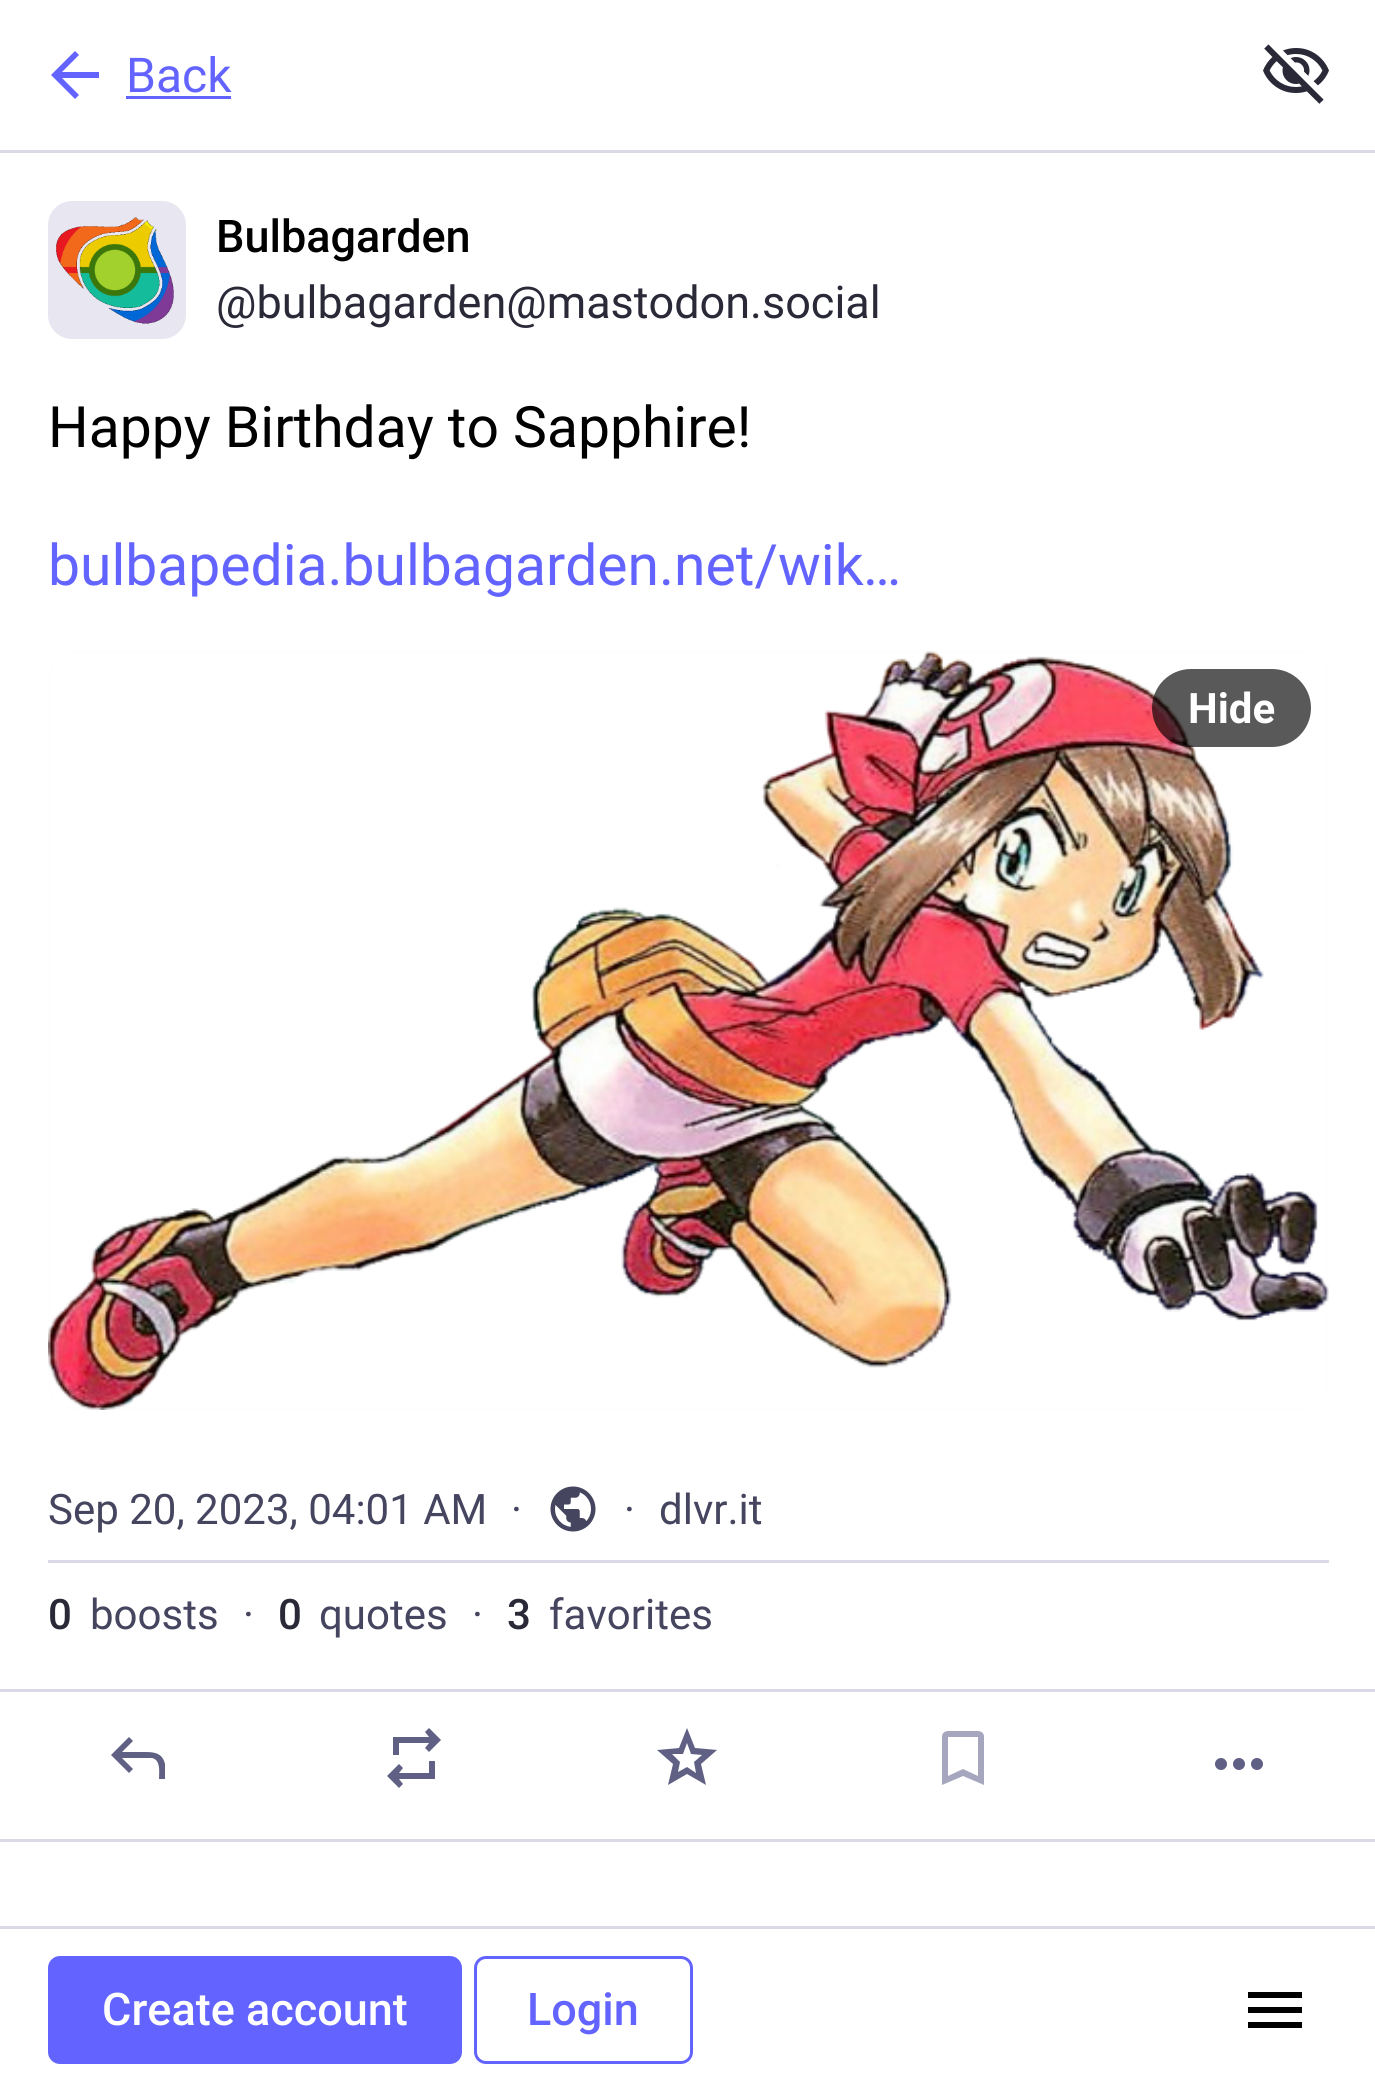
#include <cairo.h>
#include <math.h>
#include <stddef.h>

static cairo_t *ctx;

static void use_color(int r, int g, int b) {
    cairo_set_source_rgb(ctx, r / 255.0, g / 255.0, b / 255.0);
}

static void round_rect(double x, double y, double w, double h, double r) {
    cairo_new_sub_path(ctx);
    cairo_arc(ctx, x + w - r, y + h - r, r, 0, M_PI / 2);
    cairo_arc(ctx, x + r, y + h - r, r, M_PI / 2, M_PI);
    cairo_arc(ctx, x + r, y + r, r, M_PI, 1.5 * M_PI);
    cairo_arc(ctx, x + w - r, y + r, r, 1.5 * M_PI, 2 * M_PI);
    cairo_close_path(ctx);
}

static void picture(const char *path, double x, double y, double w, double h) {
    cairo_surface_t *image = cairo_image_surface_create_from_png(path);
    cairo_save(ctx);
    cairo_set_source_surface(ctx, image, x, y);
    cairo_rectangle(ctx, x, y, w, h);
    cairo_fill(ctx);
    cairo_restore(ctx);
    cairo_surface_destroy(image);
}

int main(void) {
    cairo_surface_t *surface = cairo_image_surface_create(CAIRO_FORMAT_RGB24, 1375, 2091);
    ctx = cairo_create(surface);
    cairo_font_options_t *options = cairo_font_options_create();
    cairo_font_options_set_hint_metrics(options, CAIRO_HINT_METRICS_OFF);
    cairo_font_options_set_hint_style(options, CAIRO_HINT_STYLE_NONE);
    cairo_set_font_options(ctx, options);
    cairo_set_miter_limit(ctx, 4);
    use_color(255, 255, 255);
    cairo_paint(ctx);
    use_color(217, 217, 232);
    cairo_rectangle(ctx, 0, 150, 1375, 3);
    cairo_fill(ctx);
    use_color(99, 100, 255);
    cairo_new_path(ctx);
    cairo_move_to(ctx, 62, 78);
    cairo_line_to(ctx, 79, 95);
    cairo_line_to(ctx, 75, 99);
    cairo_line_to(ctx, 51, 75);
    cairo_line_to(ctx, 75, 51);
    cairo_line_to(ctx, 79, 55);
    cairo_line_to(ctx, 62, 72);
    cairo_line_to(ctx, 99, 72);
    cairo_line_to(ctx, 99, 78);
    cairo_close_path(ctx);
    cairo_fill(ctx);
    cairo_select_font_face(ctx, "Roboto", CAIRO_FONT_SLANT_NORMAL, CAIRO_FONT_WEIGHT_NORMAL);
    cairo_set_font_size(ctx, 48);
    cairo_move_to(ctx, 126, 92);
    cairo_show_text(ctx, "Back");
    cairo_rectangle(ctx, 126, 96, 105, 3);
    cairo_fill(ctx);
    picture("img1.png", 1263, 44, 66, 60);
    use_color(232, 230, 240);
    round_rect(48, 201, 138, 138, 24);
    cairo_fill(ctx);
    picture("img2.png", 56, 217, 118, 107);
    cairo_select_font_face(ctx, "Roboto Medium", CAIRO_FONT_SLANT_NORMAL, CAIRO_FONT_WEIGHT_NORMAL);
    cairo_set_font_size(ctx, 45);
    use_color(0, 0, 0);
    cairo_move_to(ctx, 216, 252);
    cairo_show_text(ctx, "Bulbagarden");
    cairo_select_font_face(ctx, "Roboto", CAIRO_FONT_SLANT_NORMAL, CAIRO_FONT_WEIGHT_NORMAL);
    use_color(41, 41, 56);
    cairo_move_to(ctx, 216, 318);
    cairo_show_text(ctx, "@bulbagarden@mastodon.social");
    cairo_set_font_size(ctx, 57);
    use_color(0, 0, 0);
    cairo_move_to(ctx, 48, 447);
    cairo_show_text(ctx, "Happy Birthday to Sapphire!");
    use_color(99, 100, 255);
    cairo_move_to(ctx, 48, 585);
    cairo_show_text(ctx, "bulbapedia.bulbagarden.net/wik");
    cairo_move_to(ctx, 863, 585);
    cairo_show_text(ctx, "…");
    picture("img3.png", 48, 651, 1281, 759);
    round_rect(49.5, 652.5, 1278, 756, 22.5);
    cairo_set_source_rgba(ctx, 0.988, 0.973, 1, 0.15);
    cairo_set_line_width(ctx, 3);
    cairo_stroke(ctx);
    cairo_set_source_rgba(ctx, 0, 0, 0, 0.65);
    round_rect(1152, 669, 159, 78, 39);
    cairo_fill(ctx);
    cairo_select_font_face(ctx, "Roboto", CAIRO_FONT_SLANT_NORMAL, CAIRO_FONT_WEIGHT_BOLD);
    cairo_set_font_size(ctx, 42);
    use_color(255, 255, 255);
    cairo_move_to(ctx, 1188, 723);
    cairo_show_text(ctx, "Hide");
    use_color(217, 217, 232);
    cairo_rectangle(ctx, 48, 1560, 1281, 3);
    cairo_fill(ctx);
    cairo_select_font_face(ctx, "Roboto", CAIRO_FONT_SLANT_NORMAL, CAIRO_FONT_WEIGHT_NORMAL);
    use_color(69, 69, 95);
    cairo_move_to(ctx, 48, 1524);
    cairo_show_text(ctx, "Sep 20, 2023, 04:01 AM");
    cairo_move_to(ctx, 511, 1524);
    cairo_show_text(ctx, "·");
    picture("img4.png", 550, 1486, 46, 46);
    cairo_move_to(ctx, 624, 1524);
    cairo_show_text(ctx, "·");
    cairo_move_to(ctx, 659, 1524);
    cairo_show_text(ctx, "dlvr.it");
    cairo_select_font_face(ctx, "Roboto Medium", CAIRO_FONT_SLANT_NORMAL, CAIRO_FONT_WEIGHT_NORMAL);
    use_color(41, 41, 56);
    cairo_move_to(ctx, 48, 1629);
    cairo_show_text(ctx, "0");
    cairo_select_font_face(ctx, "Roboto", CAIRO_FONT_SLANT_NORMAL, CAIRO_FONT_WEIGHT_NORMAL);
    use_color(69, 69, 95);
    cairo_move_to(ctx, 90, 1629);
    cairo_show_text(ctx, "boosts");
    cairo_move_to(ctx, 243, 1629);
    cairo_show_text(ctx, "·");
    cairo_select_font_face(ctx, "Roboto Medium", CAIRO_FONT_SLANT_NORMAL, CAIRO_FONT_WEIGHT_NORMAL);
    use_color(41, 41, 56);
    cairo_move_to(ctx, 278, 1629);
    cairo_show_text(ctx, "0");
    cairo_select_font_face(ctx, "Roboto", CAIRO_FONT_SLANT_NORMAL, CAIRO_FONT_WEIGHT_NORMAL);
    use_color(69, 69, 95);
    cairo_move_to(ctx, 319, 1629);
    cairo_show_text(ctx, "quotes");
    cairo_move_to(ctx, 472, 1629);
    cairo_show_text(ctx, "·");
    cairo_select_font_face(ctx, "Roboto Medium", CAIRO_FONT_SLANT_NORMAL, CAIRO_FONT_WEIGHT_NORMAL);
    use_color(41, 41, 56);
    cairo_move_to(ctx, 507, 1629);
    cairo_show_text(ctx, "3");
    cairo_select_font_face(ctx, "Roboto", CAIRO_FONT_SLANT_NORMAL, CAIRO_FONT_WEIGHT_NORMAL);
    use_color(69, 69, 95);
    cairo_move_to(ctx, 549, 1629);
    cairo_show_text(ctx, "favorites");
    use_color(217, 217, 232);
    cairo_rectangle(ctx, 0, 1689, 1375, 3);
    cairo_fill(ctx);
    cairo_rectangle(ctx, 0, 1839, 1375, 3);
    cairo_fill(ctx);
    use_color(96, 96, 133);
    cairo_new_path(ctx);
    cairo_move_to(ctx, 159, 1779);
    cairo_curve_to(ctx, 159, 1772, 161, 1760, 152, 1758);
    cairo_line_to(ctx, 122, 1758);
    cairo_line_to(ctx, 133, 1769);
    cairo_line_to(ctx, 129, 1773);
    cairo_line_to(ctx, 111, 1755);
    cairo_line_to(ctx, 129, 1737);
    cairo_line_to(ctx, 133, 1741);
    cairo_line_to(ctx, 122, 1752);
    cairo_line_to(ctx, 141, 1752);
    cairo_curve_to(ctx, 151, 1752, 162, 1751, 165, 1764);
    cairo_line_to(ctx, 165, 1779);
    cairo_close_path(ctx);
    cairo_fill(ctx);
    cairo_new_path(ctx);
    cairo_move_to(ctx, 399, 1788);
    cairo_line_to(ctx, 387, 1776);
    cairo_line_to(ctx, 399, 1764);
    cairo_line_to(ctx, 403, 1768);
    cairo_line_to(ctx, 399, 1773);
    cairo_line_to(ctx, 429, 1773);
    cairo_line_to(ctx, 429, 1761);
    cairo_line_to(ctx, 435, 1761);
    cairo_line_to(ctx, 435, 1779);
    cairo_line_to(ctx, 399, 1779);
    cairo_line_to(ctx, 403, 1784);
    cairo_close_path(ctx);
    cairo_move_to(ctx, 393, 1755);
    cairo_line_to(ctx, 393, 1737);
    cairo_line_to(ctx, 429, 1737);
    cairo_line_to(ctx, 425, 1732);
    cairo_line_to(ctx, 429, 1728);
    cairo_line_to(ctx, 441, 1740);
    cairo_line_to(ctx, 429, 1752);
    cairo_line_to(ctx, 425, 1748);
    cairo_line_to(ctx, 429, 1743);
    cairo_line_to(ctx, 399, 1743);
    cairo_line_to(ctx, 399, 1755);
    cairo_close_path(ctx);
    cairo_fill(ctx);
    cairo_new_path(ctx);
    cairo_move_to(ctx, 678, 1772);
    cairo_line_to(ctx, 687, 1767);
    cairo_line_to(ctx, 696, 1773);
    cairo_line_to(ctx, 694, 1762);
    cairo_line_to(ctx, 702, 1755);
    cairo_line_to(ctx, 691, 1754);
    cairo_line_to(ctx, 687, 1743);
    cairo_line_to(ctx, 683, 1754);
    cairo_line_to(ctx, 672, 1754);
    cairo_line_to(ctx, 680, 1762);
    cairo_close_path(ctx);
    cairo_move_to(ctx, 668, 1785);
    cairo_line_to(ctx, 673, 1764);
    cairo_line_to(ctx, 657, 1750);
    cairo_line_to(ctx, 679, 1748);
    cairo_line_to(ctx, 687, 1728);
    cairo_line_to(ctx, 695, 1748);
    cairo_line_to(ctx, 717, 1750);
    cairo_line_to(ctx, 701, 1764);
    cairo_line_to(ctx, 706, 1785);
    cairo_line_to(ctx, 687, 1774);
    cairo_close_path(ctx);
    cairo_move_to(ctx, 687, 1759);
    cairo_close_path(ctx);
    cairo_fill(ctx);
    use_color(166, 166, 191);
    cairo_new_path(ctx);
    cairo_move_to(ctx, 942, 1785);
    cairo_line_to(ctx, 942, 1736);
    cairo_curve_to(ctx, 943, 1730, 949, 1731, 953, 1731);
    cairo_line_to(ctx, 973, 1731);
    cairo_curve_to(ctx, 977, 1731, 983, 1730, 984, 1736);
    cairo_line_to(ctx, 984, 1785);
    cairo_line_to(ctx, 963, 1776);
    cairo_close_path(ctx);
    cairo_move_to(ctx, 948, 1776);
    cairo_line_to(ctx, 963, 1769);
    cairo_line_to(ctx, 978, 1776);
    cairo_line_to(ctx, 978, 1737);
    cairo_line_to(ctx, 948, 1737);
    cairo_close_path(ctx);
    cairo_move_to(ctx, 948, 1737);
    cairo_line_to(ctx, 978, 1737);
    cairo_close_path(ctx);
    cairo_fill(ctx);
    picture("img5.png", 1215, 1758, 48, 12);
    use_color(217, 217, 232);
    cairo_rectangle(ctx, 0, 1926, 1375, 3);
    cairo_fill(ctx);
    use_color(99, 100, 255);
    round_rect(48, 1956, 414, 108, 12);
    cairo_fill(ctx);
    cairo_select_font_face(ctx, "Roboto Medium", CAIRO_FONT_SLANT_NORMAL, CAIRO_FONT_WEIGHT_NORMAL);
    cairo_set_font_size(ctx, 45);
    use_color(255, 255, 255);
    cairo_move_to(ctx, 102, 2025);
    cairo_show_text(ctx, "Create account");
    round_rect(475.5, 1957.5, 216, 105, 10.5);
    use_color(99, 100, 255);
    cairo_stroke(ctx);
    cairo_move_to(ctx, 527, 2025);
    cairo_show_text(ctx, "Login");
    use_color(0, 0, 0);
    cairo_new_path(ctx);
    cairo_move_to(ctx, 1248, 2028);
    cairo_line_to(ctx, 1248, 2022);
    cairo_line_to(ctx, 1302, 2022);
    cairo_line_to(ctx, 1302, 2028);
    cairo_close_path(ctx);
    cairo_move_to(ctx, 1248, 2013);
    cairo_line_to(ctx, 1248, 2007);
    cairo_line_to(ctx, 1302, 2007);
    cairo_line_to(ctx, 1302, 2013);
    cairo_close_path(ctx);
    cairo_move_to(ctx, 1248, 1998);
    cairo_line_to(ctx, 1248, 1992);
    cairo_line_to(ctx, 1302, 1992);
    cairo_line_to(ctx, 1302, 1998);
    cairo_close_path(ctx);
    cairo_fill(ctx);
    cairo_surface_write_to_png(surface, "result.png");
    cairo_font_options_destroy(options);
    cairo_destroy(ctx);
    cairo_surface_destroy(surface);
    return 0;
}
